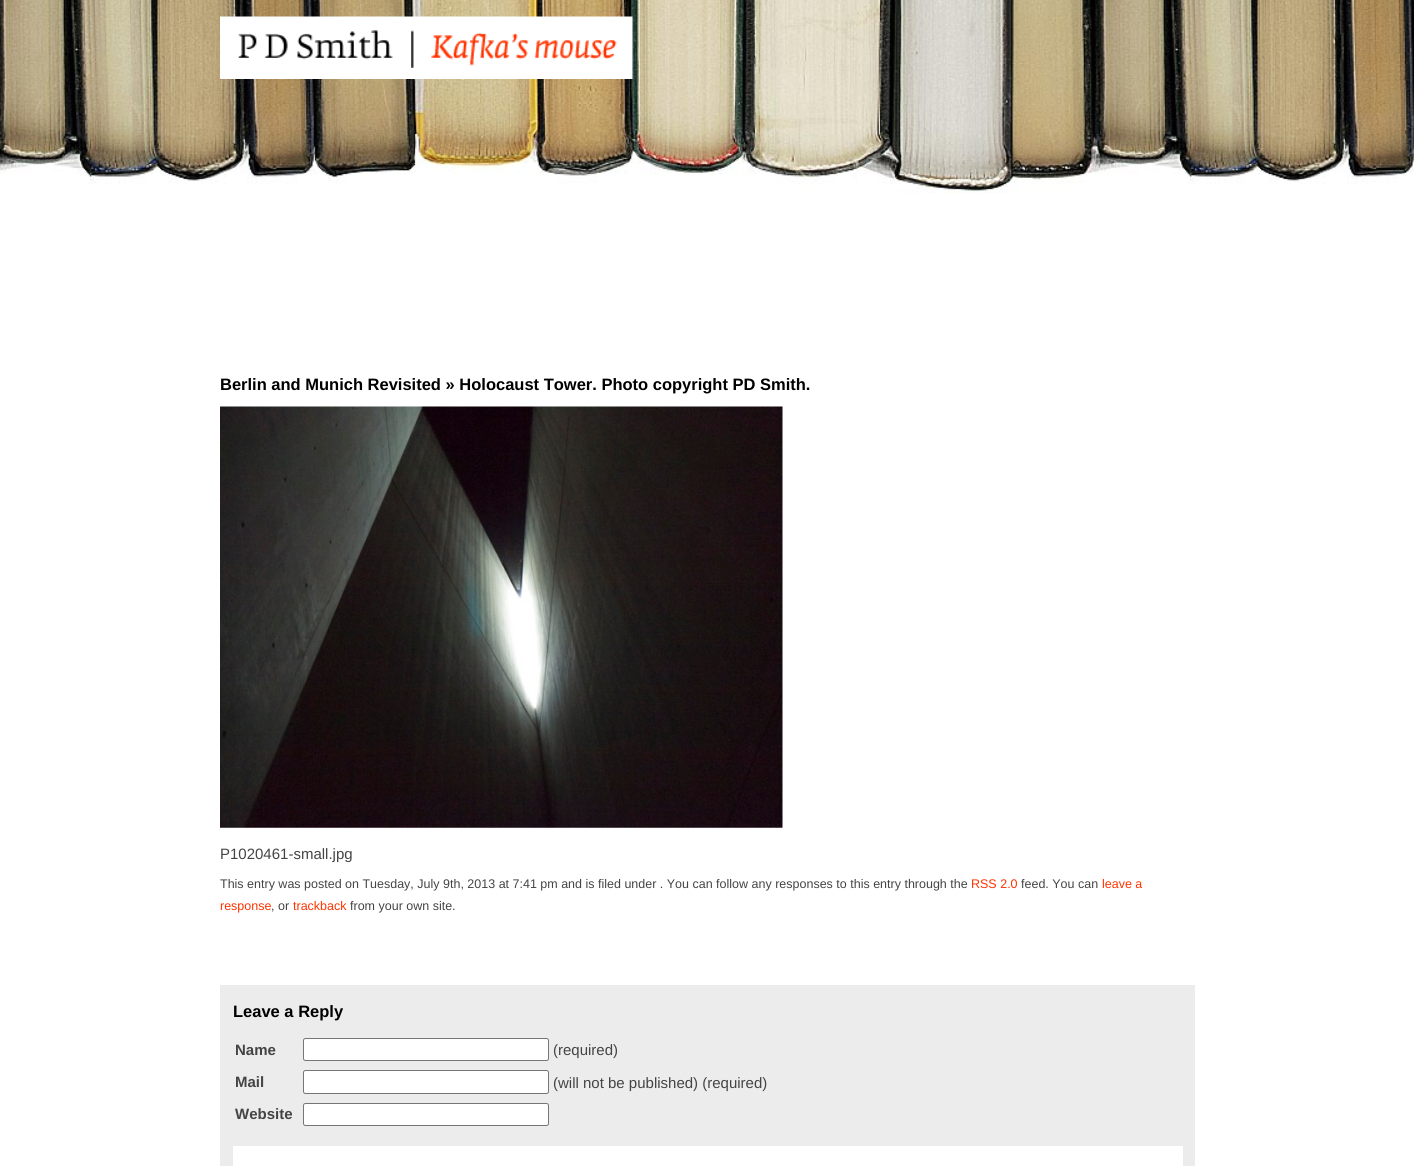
#include <cairo.h>
#include <math.h>
#include <stddef.h>

static cairo_t *ctx;

static void use_color(int r, int g, int b) {
    cairo_set_source_rgb(ctx, r / 255.0, g / 255.0, b / 255.0);
}

static void round_rect(double x, double y, double w, double h, double r) {
    cairo_new_sub_path(ctx);
    cairo_arc(ctx, x + w - r, y + h - r, r, 0, M_PI / 2);
    cairo_arc(ctx, x + r, y + h - r, r, M_PI / 2, M_PI);
    cairo_arc(ctx, x + r, y + r, r, M_PI, 1.5 * M_PI);
    cairo_arc(ctx, x + w - r, y + r, r, 1.5 * M_PI, 2 * M_PI);
    cairo_close_path(ctx);
}

static void picture(const char *path, double x, double y, double w, double h) {
    cairo_surface_t *image = cairo_image_surface_create_from_png(path);
    cairo_save(ctx);
    cairo_set_source_surface(ctx, image, x, y);
    cairo_rectangle(ctx, x, y, w, h);
    cairo_fill(ctx);
    cairo_restore(ctx);
    cairo_surface_destroy(image);
}

int main(void) {
    cairo_surface_t *surface = cairo_image_surface_create(CAIRO_FORMAT_RGB24, 1414, 1166);
    ctx = cairo_create(surface);
    cairo_font_options_t *options = cairo_font_options_create();
    cairo_font_options_set_hint_metrics(options, CAIRO_HINT_METRICS_OFF);
    cairo_font_options_set_hint_style(options, CAIRO_HINT_STYLE_NONE);
    cairo_set_font_options(ctx, options);
    cairo_set_miter_limit(ctx, 4);
    use_color(255, 255, 255);
    cairo_paint(ctx);
    picture("img1.png", 0, 0, 1414, 194);
    picture("img2.png", 220, 16, 413, 63);
    cairo_select_font_face(ctx, "Liberation Sans", CAIRO_FONT_SLANT_NORMAL, CAIRO_FONT_WEIGHT_BOLD);
    cairo_set_font_size(ctx, 16.5);
    use_color(0, 0, 0);
    cairo_move_to(ctx, 220, 390);
    cairo_show_text(ctx, "Berlin and Munich Revisited » Holocaust Tower. Photo copyright PD Smith.");
    picture("img3.png", 220, 406, 563, 422);
    cairo_select_font_face(ctx, "Liberation Sans", CAIRO_FONT_SLANT_NORMAL, CAIRO_FONT_WEIGHT_NORMAL);
    cairo_set_font_size(ctx, 15);
    use_color(68, 68, 68);
    cairo_move_to(ctx, 220, 859);
    cairo_show_text(ctx, "P1020461-small.jpg");
    cairo_set_font_size(ctx, 12.5);
    cairo_move_to(ctx, 220, 888);
    cairo_show_text(ctx, "This entry was posted on Tuesday, July 9th, 2013 at 7:41 pm and is filed under . You can follow any responses to this entry through the");
    use_color(255, 51, 0);
    cairo_move_to(ctx, 971, 888);
    cairo_show_text(ctx, "RSS 2.0");
    use_color(68, 68, 68);
    cairo_move_to(ctx, 1021, 888);
    cairo_show_text(ctx, "feed. You can");
    use_color(255, 51, 0);
    cairo_move_to(ctx, 1102, 888);
    cairo_show_text(ctx, "leave a");
    cairo_move_to(ctx, 220, 910);
    cairo_show_text(ctx, "response");
    use_color(68, 68, 68);
    cairo_move_to(ctx, 271, 910);
    cairo_show_text(ctx, ", or");
    use_color(255, 51, 0);
    cairo_move_to(ctx, 293, 910);
    cairo_show_text(ctx, "trackback");
    use_color(68, 68, 68);
    cairo_move_to(ctx, 350, 910);
    cairo_show_text(ctx, "from your own site.");
    use_color(236, 236, 236);
    cairo_rectangle(ctx, 220, 985, 975, 181);
    cairo_fill(ctx);
    cairo_select_font_face(ctx, "Liberation Sans", CAIRO_FONT_SLANT_NORMAL, CAIRO_FONT_WEIGHT_BOLD);
    cairo_set_font_size(ctx, 16.5);
    use_color(0, 0, 0);
    cairo_move_to(ctx, 233, 1017);
    cairo_show_text(ctx, "Leave a Reply");
    cairo_set_font_size(ctx, 15);
    use_color(68, 68, 68);
    cairo_move_to(ctx, 235, 1055);
    cairo_show_text(ctx, "Name");
    use_color(255, 255, 255);
    round_rect(303.5, 1038.5, 245, 22, 2);
    cairo_fill_preserve(ctx);
    use_color(118, 118, 118);
    cairo_set_line_width(ctx, 1);
    cairo_stroke(ctx);
    cairo_select_font_face(ctx, "Liberation Sans", CAIRO_FONT_SLANT_NORMAL, CAIRO_FONT_WEIGHT_NORMAL);
    use_color(68, 68, 68);
    cairo_move_to(ctx, 553, 1055);
    cairo_show_text(ctx, "(required)");
    cairo_select_font_face(ctx, "Liberation Sans", CAIRO_FONT_SLANT_NORMAL, CAIRO_FONT_WEIGHT_BOLD);
    cairo_move_to(ctx, 235, 1087);
    cairo_show_text(ctx, "Mail");
    use_color(255, 255, 255);
    round_rect(303.5, 1070.5, 245, 23, 2);
    cairo_fill_preserve(ctx);
    use_color(118, 118, 118);
    cairo_stroke(ctx);
    cairo_select_font_face(ctx, "Liberation Sans", CAIRO_FONT_SLANT_NORMAL, CAIRO_FONT_WEIGHT_NORMAL);
    use_color(68, 68, 68);
    cairo_move_to(ctx, 553, 1088);
    cairo_show_text(ctx, "(will not be published) (required)");
    cairo_select_font_face(ctx, "Liberation Sans", CAIRO_FONT_SLANT_NORMAL, CAIRO_FONT_WEIGHT_BOLD);
    cairo_move_to(ctx, 235, 1119);
    cairo_show_text(ctx, "Website");
    use_color(255, 255, 255);
    round_rect(303.5, 1103.5, 245, 22, 2);
    cairo_fill_preserve(ctx);
    use_color(118, 118, 118);
    cairo_stroke(ctx);
    use_color(255, 255, 255);
    cairo_rectangle(ctx, 233, 1146, 950, 20);
    cairo_fill(ctx);
    cairo_surface_write_to_png(surface, "result.png");
    cairo_font_options_destroy(options);
    cairo_destroy(ctx);
    cairo_surface_destroy(surface);
    return 0;
}
